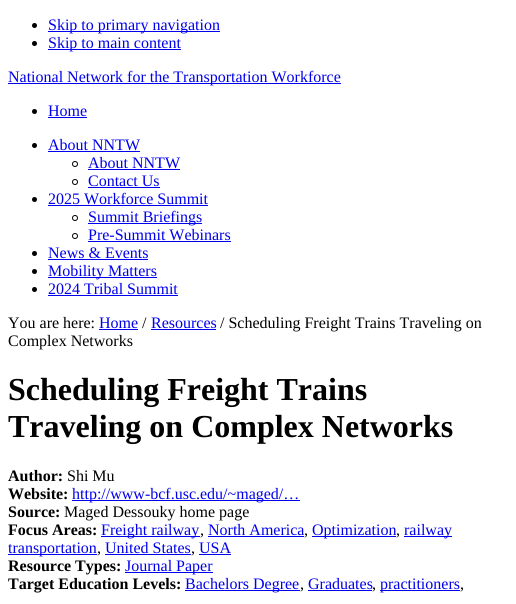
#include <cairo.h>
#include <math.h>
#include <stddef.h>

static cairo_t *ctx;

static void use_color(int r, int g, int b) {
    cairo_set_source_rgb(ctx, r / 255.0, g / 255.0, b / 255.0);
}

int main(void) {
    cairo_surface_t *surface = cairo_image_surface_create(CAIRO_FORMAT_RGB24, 516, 604);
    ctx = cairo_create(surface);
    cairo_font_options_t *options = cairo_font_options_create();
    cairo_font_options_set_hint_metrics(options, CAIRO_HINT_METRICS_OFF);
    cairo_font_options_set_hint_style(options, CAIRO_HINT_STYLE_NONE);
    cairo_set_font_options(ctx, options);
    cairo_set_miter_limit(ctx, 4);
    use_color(255, 255, 255);
    cairo_paint(ctx);
    use_color(0, 0, 0);
    cairo_arc(ctx, 34.5, 25.5, 2.5, 0, 2 * M_PI);
    cairo_fill(ctx);
    use_color(0, 0, 238);
    cairo_rectangle(ctx, 48, 31, 172, 1);
    cairo_fill(ctx);
    cairo_select_font_face(ctx, "Liberation Serif", CAIRO_FONT_SLANT_NORMAL, CAIRO_FONT_WEIGHT_NORMAL);
    cairo_set_font_size(ctx, 16);
    cairo_move_to(ctx, 48, 30);
    cairo_show_text(ctx, "Skip to primary navigation");
    use_color(0, 0, 0);
    cairo_new_path(ctx);
    cairo_arc(ctx, 34.5, 43.5, 2.5, 0, 2 * M_PI);
    cairo_fill(ctx);
    use_color(0, 0, 238);
    cairo_rectangle(ctx, 48, 49, 133, 1);
    cairo_fill(ctx);
    cairo_move_to(ctx, 48, 48);
    cairo_show_text(ctx, "Skip to main content");
    cairo_rectangle(ctx, 8, 83, 333, 1);
    cairo_fill(ctx);
    cairo_move_to(ctx, 8, 82);
    cairo_show_text(ctx, "National Network for the Transportation Workforce");
    use_color(0, 0, 0);
    cairo_new_path(ctx);
    cairo_arc(ctx, 34.5, 111.5, 2.5, 0, 2 * M_PI);
    cairo_fill(ctx);
    use_color(0, 0, 238);
    cairo_move_to(ctx, 48, 116);
    cairo_show_text(ctx, "Home");
    cairo_rectangle(ctx, 48, 117, 39, 1);
    cairo_fill(ctx);
    use_color(0, 0, 0);
    cairo_arc(ctx, 34.5, 145.5, 2.5, 0, 2 * M_PI);
    cairo_fill(ctx);
    use_color(0, 0, 238);
    cairo_move_to(ctx, 48, 150);
    cairo_show_text(ctx, "About NNTW");
    cairo_rectangle(ctx, 48, 151, 92, 1);
    cairo_fill(ctx);
    cairo_arc(ctx, 75, 164, 2.5, 0, 2 * M_PI);
    use_color(0, 0, 0);
    cairo_set_line_width(ctx, 1);
    cairo_stroke(ctx);
    use_color(0, 0, 238);
    cairo_move_to(ctx, 88, 168);
    cairo_show_text(ctx, "About NNTW");
    cairo_rectangle(ctx, 88, 169, 92, 1);
    cairo_fill(ctx);
    cairo_arc(ctx, 75, 182, 2.5, 0, 2 * M_PI);
    use_color(0, 0, 0);
    cairo_stroke(ctx);
    use_color(0, 0, 238);
    cairo_move_to(ctx, 88, 186);
    cairo_show_text(ctx, "Contact Us");
    cairo_rectangle(ctx, 88, 187, 72, 1);
    cairo_fill(ctx);
    use_color(0, 0, 0);
    cairo_arc(ctx, 34.5, 199.5, 2.5, 0, 2 * M_PI);
    cairo_fill(ctx);
    use_color(0, 0, 238);
    cairo_move_to(ctx, 48, 204);
    cairo_show_text(ctx, "2025 Workforce Summit");
    cairo_rectangle(ctx, 48, 205, 160, 1);
    cairo_fill(ctx);
    cairo_arc(ctx, 75, 218, 2.5, 0, 2 * M_PI);
    use_color(0, 0, 0);
    cairo_stroke(ctx);
    use_color(0, 0, 238);
    cairo_rectangle(ctx, 88, 223, 114, 1);
    cairo_fill(ctx);
    cairo_move_to(ctx, 88, 222);
    cairo_show_text(ctx, "Summit Briefings");
    cairo_new_path(ctx);
    cairo_arc(ctx, 75, 236, 2.5, 0, 2 * M_PI);
    use_color(0, 0, 0);
    cairo_stroke(ctx);
    use_color(0, 0, 238);
    cairo_move_to(ctx, 88, 240);
    cairo_show_text(ctx, "Pre-Summit Webinars");
    cairo_rectangle(ctx, 88, 241, 143, 1);
    cairo_fill(ctx);
    use_color(0, 0, 0);
    cairo_arc(ctx, 34.5, 253.5, 2.5, 0, 2 * M_PI);
    cairo_fill(ctx);
    use_color(0, 0, 238);
    cairo_move_to(ctx, 48, 258);
    cairo_show_text(ctx, "News & Events");
    cairo_rectangle(ctx, 48, 259, 100, 1);
    cairo_fill(ctx);
    use_color(0, 0, 0);
    cairo_arc(ctx, 34.5, 271.5, 2.5, 0, 2 * M_PI);
    cairo_fill(ctx);
    use_color(0, 0, 238);
    cairo_rectangle(ctx, 48, 277, 109, 1);
    cairo_fill(ctx);
    cairo_move_to(ctx, 48, 276);
    cairo_show_text(ctx, "Mobility Matters");
    use_color(0, 0, 0);
    cairo_new_path(ctx);
    cairo_arc(ctx, 34.5, 289.5, 2.5, 0, 2 * M_PI);
    cairo_fill(ctx);
    use_color(0, 0, 238);
    cairo_move_to(ctx, 48, 294);
    cairo_show_text(ctx, "2024 Tribal Summit");
    cairo_rectangle(ctx, 48, 295, 130, 1);
    cairo_fill(ctx);
    use_color(0, 0, 0);
    cairo_move_to(ctx, 8, 328);
    cairo_show_text(ctx, "You are here:");
    use_color(0, 0, 238);
    cairo_move_to(ctx, 99, 328);
    cairo_show_text(ctx, "Home");
    cairo_rectangle(ctx, 99, 329, 39, 1);
    cairo_fill(ctx);
    use_color(0, 0, 0);
    cairo_move_to(ctx, 142, 328);
    cairo_show_text(ctx, "/");
    use_color(0, 0, 238);
    cairo_move_to(ctx, 151, 328);
    cairo_show_text(ctx, "Resources");
    cairo_rectangle(ctx, 151, 329, 65, 1);
    cairo_fill(ctx);
    use_color(0, 0, 0);
    cairo_move_to(ctx, 220, 328);
    cairo_show_text(ctx, "/ Scheduling Freight Trains Traveling on");
    cairo_move_to(ctx, 8, 346);
    cairo_show_text(ctx, "Complex Networks");
    cairo_select_font_face(ctx, "Liberation Serif", CAIRO_FONT_SLANT_NORMAL, CAIRO_FONT_WEIGHT_BOLD);
    cairo_set_font_size(ctx, 32);
    cairo_move_to(ctx, 8, 400);
    cairo_show_text(ctx, "Scheduling Freight Trains");
    cairo_move_to(ctx, 8, 437);
    cairo_show_text(ctx, "Traveling on Complex Networks");
    cairo_set_font_size(ctx, 16);
    cairo_move_to(ctx, 8, 481);
    cairo_show_text(ctx, "Author:");
    cairo_select_font_face(ctx, "Liberation Serif", CAIRO_FONT_SLANT_NORMAL, CAIRO_FONT_WEIGHT_NORMAL);
    cairo_move_to(ctx, 67, 481);
    cairo_show_text(ctx, "Shi Mu");
    cairo_select_font_face(ctx, "Liberation Serif", CAIRO_FONT_SLANT_NORMAL, CAIRO_FONT_WEIGHT_BOLD);
    cairo_move_to(ctx, 8, 499);
    cairo_show_text(ctx, "Website:");
    use_color(0, 0, 238);
    cairo_rectangle(ctx, 72, 500, 228, 1);
    cairo_fill(ctx);
    cairo_select_font_face(ctx, "Liberation Serif", CAIRO_FONT_SLANT_NORMAL, CAIRO_FONT_WEIGHT_NORMAL);
    cairo_move_to(ctx, 72, 499);
    cairo_show_text(ctx, "http://www-bcf.usc.edu/~maged/…");
    cairo_select_font_face(ctx, "Liberation Serif", CAIRO_FONT_SLANT_NORMAL, CAIRO_FONT_WEIGHT_BOLD);
    use_color(0, 0, 0);
    cairo_move_to(ctx, 8, 517);
    cairo_show_text(ctx, "Source:");
    cairo_select_font_face(ctx, "Liberation Serif", CAIRO_FONT_SLANT_NORMAL, CAIRO_FONT_WEIGHT_NORMAL);
    cairo_move_to(ctx, 64, 517);
    cairo_show_text(ctx, "Maged Dessouky home page");
    cairo_select_font_face(ctx, "Liberation Serif", CAIRO_FONT_SLANT_NORMAL, CAIRO_FONT_WEIGHT_BOLD);
    cairo_move_to(ctx, 8, 535);
    cairo_show_text(ctx, "Focus Areas:");
    use_color(0, 0, 238);
    cairo_rectangle(ctx, 101, 536, 99, 1);
    cairo_fill(ctx);
    cairo_select_font_face(ctx, "Liberation Serif", CAIRO_FONT_SLANT_NORMAL, CAIRO_FONT_WEIGHT_NORMAL);
    cairo_move_to(ctx, 101, 535);
    cairo_show_text(ctx, "Freight railway");
    use_color(0, 0, 0);
    cairo_move_to(ctx, 200, 535);
    cairo_show_text(ctx, ",");
    use_color(0, 0, 238);
    cairo_move_to(ctx, 208, 535);
    cairo_show_text(ctx, "North America");
    cairo_rectangle(ctx, 208, 536, 96, 1);
    cairo_fill(ctx);
    use_color(0, 0, 0);
    cairo_move_to(ctx, 304, 535);
    cairo_show_text(ctx, ",");
    use_color(0, 0, 238);
    cairo_rectangle(ctx, 312, 536, 84, 1);
    cairo_fill(ctx);
    cairo_move_to(ctx, 312, 535);
    cairo_show_text(ctx, "Optimization");
    use_color(0, 0, 0);
    cairo_move_to(ctx, 396, 535);
    cairo_show_text(ctx, ",");
    use_color(0, 0, 238);
    cairo_rectangle(ctx, 404, 536, 48, 1);
    cairo_fill(ctx);
    cairo_move_to(ctx, 404, 535);
    cairo_show_text(ctx, "railway");
    cairo_rectangle(ctx, 8, 554, 89, 1);
    cairo_fill(ctx);
    cairo_move_to(ctx, 8, 553);
    cairo_show_text(ctx, "transportation");
    use_color(0, 0, 0);
    cairo_move_to(ctx, 97, 553);
    cairo_show_text(ctx, ",");
    use_color(0, 0, 238);
    cairo_move_to(ctx, 105, 553);
    cairo_show_text(ctx, "United States");
    cairo_rectangle(ctx, 105, 554, 86, 1);
    cairo_fill(ctx);
    use_color(0, 0, 0);
    cairo_move_to(ctx, 191, 553);
    cairo_show_text(ctx, ",");
    use_color(0, 0, 238);
    cairo_move_to(ctx, 199, 553);
    cairo_show_text(ctx, "USA");
    cairo_rectangle(ctx, 199, 554, 32, 1);
    cairo_fill(ctx);
    cairo_select_font_face(ctx, "Liberation Serif", CAIRO_FONT_SLANT_NORMAL, CAIRO_FONT_WEIGHT_BOLD);
    use_color(0, 0, 0);
    cairo_move_to(ctx, 8, 571);
    cairo_show_text(ctx, "Resource Types:");
    use_color(0, 0, 238);
    cairo_rectangle(ctx, 125, 572, 88, 1);
    cairo_fill(ctx);
    cairo_select_font_face(ctx, "Liberation Serif", CAIRO_FONT_SLANT_NORMAL, CAIRO_FONT_WEIGHT_NORMAL);
    cairo_move_to(ctx, 125, 571);
    cairo_show_text(ctx, "Journal Paper");
    cairo_select_font_face(ctx, "Liberation Serif", CAIRO_FONT_SLANT_NORMAL, CAIRO_FONT_WEIGHT_BOLD);
    use_color(0, 0, 0);
    cairo_move_to(ctx, 8, 589);
    cairo_show_text(ctx, "Target Education Levels:");
    use_color(0, 0, 238);
    cairo_rectangle(ctx, 185, 590, 115, 1);
    cairo_fill(ctx);
    cairo_select_font_face(ctx, "Liberation Serif", CAIRO_FONT_SLANT_NORMAL, CAIRO_FONT_WEIGHT_NORMAL);
    cairo_move_to(ctx, 185, 589);
    cairo_show_text(ctx, "Bachelors Degree");
    use_color(0, 0, 0);
    cairo_move_to(ctx, 300, 589);
    cairo_show_text(ctx, ",");
    use_color(0, 0, 238);
    cairo_move_to(ctx, 308, 589);
    cairo_show_text(ctx, "Graduates");
    cairo_rectangle(ctx, 308, 590, 64, 1);
    cairo_fill(ctx);
    use_color(0, 0, 0);
    cairo_move_to(ctx, 372, 589);
    cairo_show_text(ctx, ",");
    use_color(0, 0, 238);
    cairo_rectangle(ctx, 380, 590, 80, 1);
    cairo_fill(ctx);
    cairo_move_to(ctx, 380, 589);
    cairo_show_text(ctx, "practitioners");
    use_color(0, 0, 0);
    cairo_move_to(ctx, 460, 589);
    cairo_show_text(ctx, ",");
    cairo_surface_write_to_png(surface, "result.png");
    cairo_font_options_destroy(options);
    cairo_destroy(ctx);
    cairo_surface_destroy(surface);
    return 0;
}
